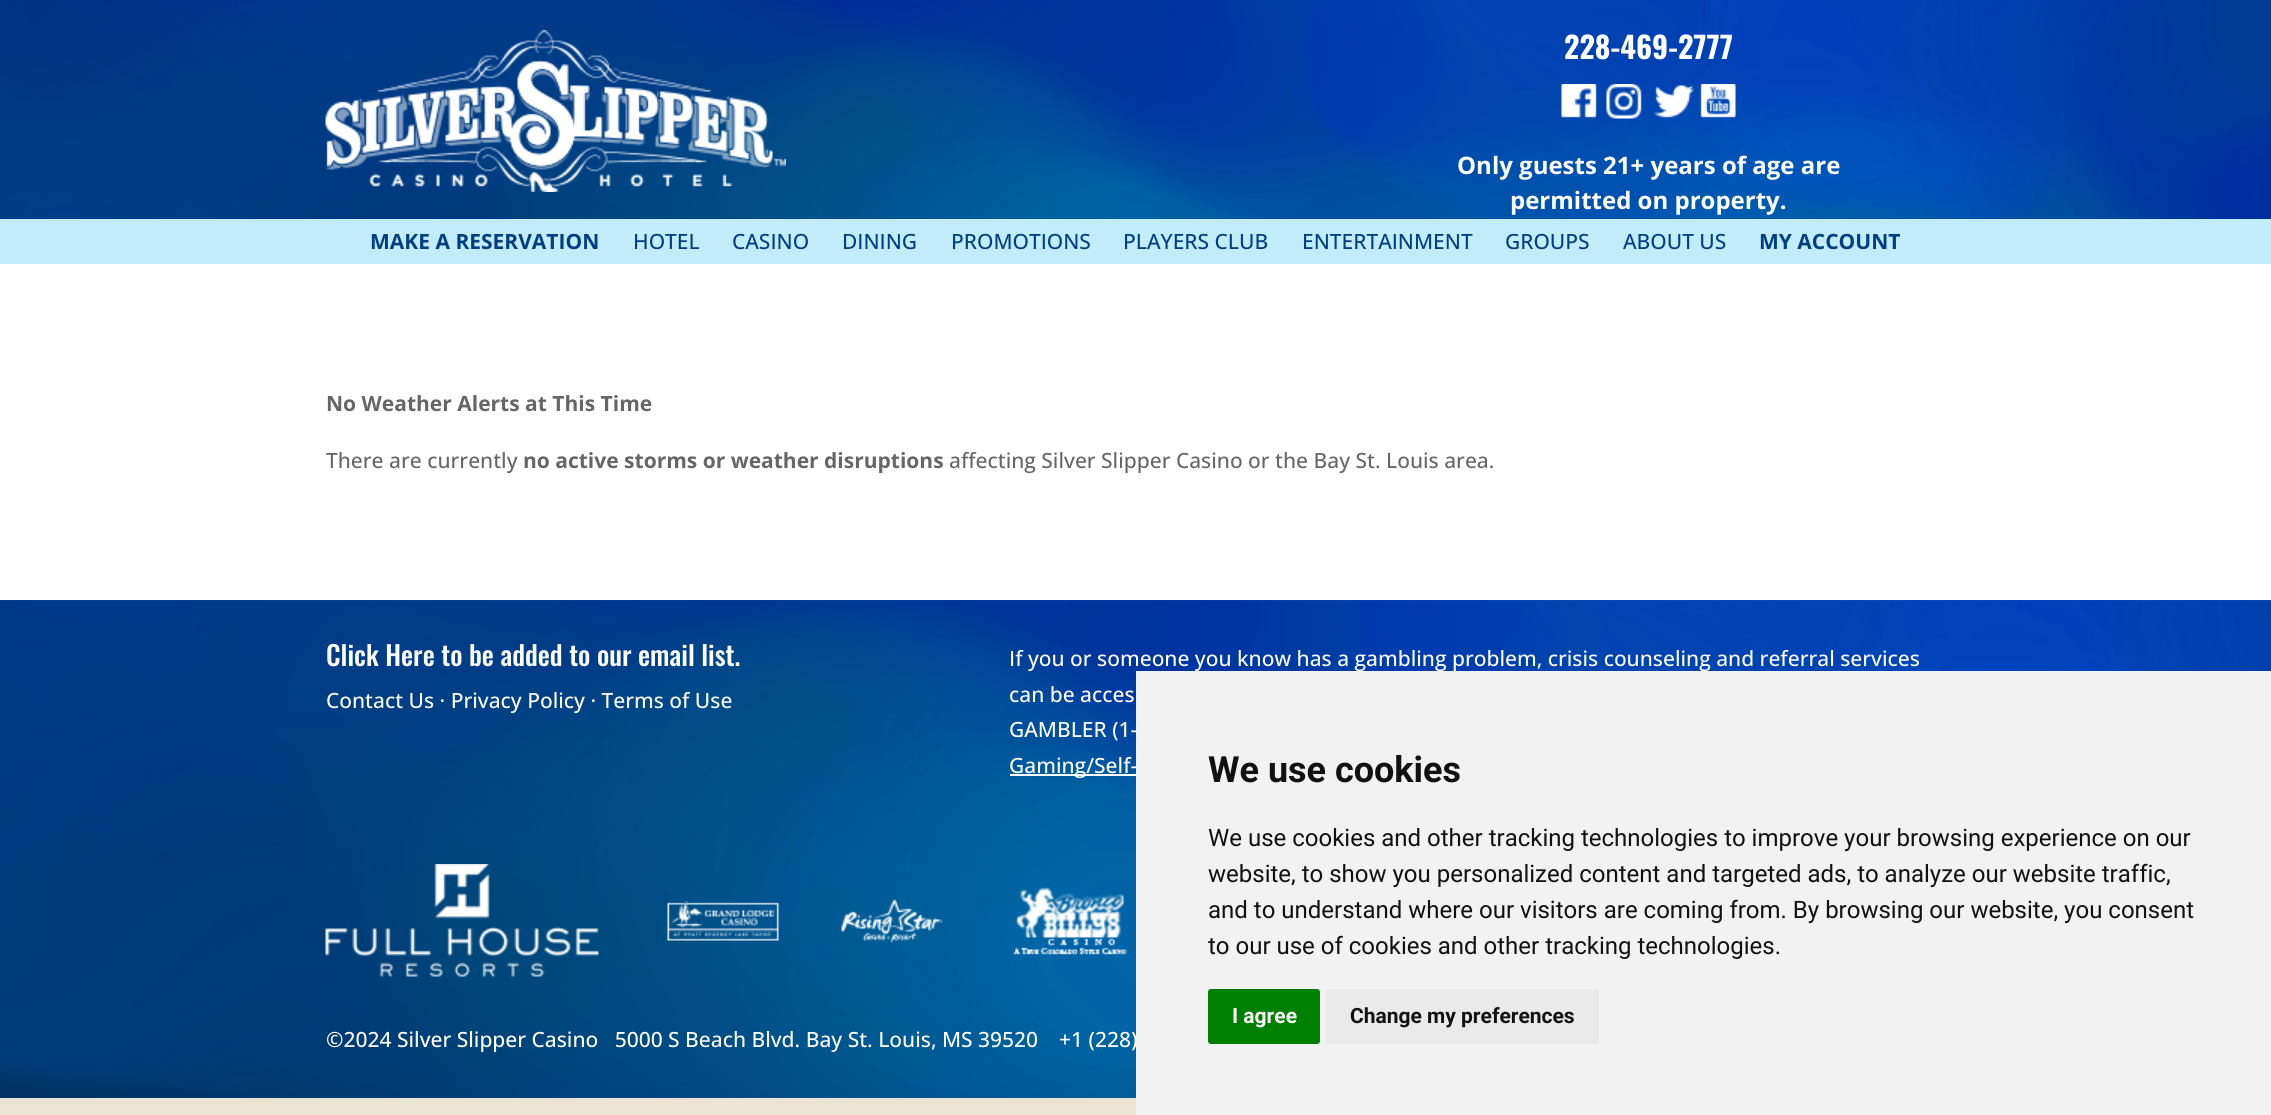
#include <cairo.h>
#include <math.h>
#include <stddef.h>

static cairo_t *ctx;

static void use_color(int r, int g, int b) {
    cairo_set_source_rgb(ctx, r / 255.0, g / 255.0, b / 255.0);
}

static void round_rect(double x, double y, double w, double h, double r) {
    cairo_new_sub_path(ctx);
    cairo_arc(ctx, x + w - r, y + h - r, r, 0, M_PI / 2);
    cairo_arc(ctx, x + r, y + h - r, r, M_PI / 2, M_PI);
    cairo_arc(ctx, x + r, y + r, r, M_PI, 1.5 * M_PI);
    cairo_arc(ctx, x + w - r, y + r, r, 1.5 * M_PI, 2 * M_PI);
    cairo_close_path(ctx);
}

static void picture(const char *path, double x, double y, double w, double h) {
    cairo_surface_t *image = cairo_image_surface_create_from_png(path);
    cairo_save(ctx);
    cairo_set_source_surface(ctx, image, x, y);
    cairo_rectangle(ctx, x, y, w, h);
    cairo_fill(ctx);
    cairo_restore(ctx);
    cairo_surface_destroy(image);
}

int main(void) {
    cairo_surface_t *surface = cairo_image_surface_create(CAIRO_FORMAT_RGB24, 2271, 1115);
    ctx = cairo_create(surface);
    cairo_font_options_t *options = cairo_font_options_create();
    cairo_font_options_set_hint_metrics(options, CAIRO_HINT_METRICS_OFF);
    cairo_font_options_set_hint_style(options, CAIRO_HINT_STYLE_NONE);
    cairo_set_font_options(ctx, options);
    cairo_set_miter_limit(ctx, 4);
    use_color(235, 228, 210);
    cairo_paint(ctx);
    picture("img1.png", 0, 0, 2271, 219);
    picture("img2.png", 325, 30, 461, 162);
    cairo_select_font_face(ctx, "Oswald", CAIRO_FONT_SLANT_NORMAL, CAIRO_FONT_WEIGHT_BOLD);
    cairo_set_font_size(ctx, 30);
    use_color(255, 255, 255);
    cairo_move_to(ctx, 1564, 59);
    cairo_show_text(ctx, "228-469-2777");
    picture("img3.png", 1561, 84, 175, 35);
    cairo_select_font_face(ctx, "Open Sans", CAIRO_FONT_SLANT_NORMAL, CAIRO_FONT_WEIGHT_BOLD);
    cairo_set_font_size(ctx, 24);
    cairo_move_to(ctx, 1457, 174);
    cairo_show_text(ctx, "Only guests 21+ years of age are");
    cairo_move_to(ctx, 1510, 209);
    cairo_show_text(ctx, "permitted on property.");
    use_color(194, 236, 250);
    cairo_rectangle(ctx, 0, 219, 2271, 45);
    cairo_fill(ctx);
    cairo_set_font_size(ctx, 21);
    use_color(0, 62, 131);
    cairo_move_to(ctx, 370, 249);
    cairo_show_text(ctx, "MAKE A RESERVATION");
    cairo_select_font_face(ctx, "Open Sans Medium", CAIRO_FONT_SLANT_NORMAL, CAIRO_FONT_WEIGHT_NORMAL);
    cairo_move_to(ctx, 633, 249);
    cairo_show_text(ctx, "HOTEL");
    cairo_move_to(ctx, 732, 249);
    cairo_show_text(ctx, "CASINO");
    cairo_move_to(ctx, 842, 249);
    cairo_show_text(ctx, "DINING");
    cairo_move_to(ctx, 951, 249);
    cairo_show_text(ctx, "PROMOTIONS");
    cairo_move_to(ctx, 1123, 249);
    cairo_show_text(ctx, "PLAYERS CLUB");
    cairo_move_to(ctx, 1302, 249);
    cairo_show_text(ctx, "ENTERTAINMENT");
    cairo_move_to(ctx, 1505, 249);
    cairo_show_text(ctx, "GROUPS");
    cairo_move_to(ctx, 1623, 249);
    cairo_show_text(ctx, "ABOUT US");
    cairo_select_font_face(ctx, "Open Sans", CAIRO_FONT_SLANT_NORMAL, CAIRO_FONT_WEIGHT_BOLD);
    cairo_move_to(ctx, 1759, 249);
    cairo_show_text(ctx, "MY ACCOUNT");
    use_color(255, 255, 255);
    cairo_rectangle(ctx, 0, 264, 2271, 336);
    cairo_fill(ctx);
    use_color(102, 102, 102);
    cairo_move_to(ctx, 326, 411);
    cairo_show_text(ctx, "No Weather Alerts at This Time");
    cairo_select_font_face(ctx, "Open Sans Medium", CAIRO_FONT_SLANT_NORMAL, CAIRO_FONT_WEIGHT_NORMAL);
    cairo_move_to(ctx, 326, 468);
    cairo_show_text(ctx, "There are currently");
    cairo_select_font_face(ctx, "Open Sans", CAIRO_FONT_SLANT_NORMAL, CAIRO_FONT_WEIGHT_BOLD);
    cairo_move_to(ctx, 523, 468);
    cairo_show_text(ctx, "no active storms or weather disruptions");
    cairo_select_font_face(ctx, "Open Sans Medium", CAIRO_FONT_SLANT_NORMAL, CAIRO_FONT_WEIGHT_NORMAL);
    cairo_move_to(ctx, 949, 468);
    cairo_show_text(ctx, "affecting Silver Slipper Casino or the Bay St. Louis area.");
    picture("img4.png", 0, 600, 2271, 498);
    cairo_select_font_face(ctx, "Oswald Medium", CAIRO_FONT_SLANT_NORMAL, CAIRO_FONT_WEIGHT_NORMAL);
    cairo_set_font_size(ctx, 27);
    use_color(255, 255, 255);
    cairo_move_to(ctx, 326, 666);
    cairo_show_text(ctx, "Click Here to be added to our email list.");
    cairo_select_font_face(ctx, "Open Sans Medium", CAIRO_FONT_SLANT_NORMAL, CAIRO_FONT_WEIGHT_NORMAL);
    cairo_set_font_size(ctx, 21);
    cairo_move_to(ctx, 326, 708);
    cairo_show_text(ctx, "Contact Us · Privacy Policy · Terms of Use");
    cairo_move_to(ctx, 1009, 666);
    cairo_show_text(ctx, "If you or someone you know has a gambling problem, crisis counseling and referral services");
    cairo_move_to(ctx, 1009, 702);
    cairo_show_text(ctx, "can be acces");
    cairo_move_to(ctx, 1009, 737);
    cairo_show_text(ctx, "GAMBLER (1-");
    cairo_rectangle(ctx, 1010, 774, 126, 2);
    cairo_fill(ctx);
    cairo_move_to(ctx, 1009, 773);
    cairo_show_text(ctx, "Gaming/Self-");
    picture("img5.png", 325, 864, 802, 113);
    cairo_move_to(ctx, 326, 1047);
    cairo_show_text(ctx, "©2024 Silver Slipper Casino   5000 S Beach Blvd. Bay St. Louis, MS 39520");
    cairo_move_to(ctx, 1059, 1047);
    cairo_show_text(ctx, "+1 (228)");
    use_color(242, 242, 242);
    cairo_rectangle(ctx, 1136, 671, 1135, 444);
    cairo_fill(ctx);
    cairo_select_font_face(ctx, "Roboto", CAIRO_FONT_SLANT_NORMAL, CAIRO_FONT_WEIGHT_BOLD);
    cairo_set_font_size(ctx, 36);
    use_color(17, 17, 17);
    cairo_move_to(ctx, 1208, 782);
    cairo_show_text(ctx, "We use cookies");
    cairo_select_font_face(ctx, "Roboto", CAIRO_FONT_SLANT_NORMAL, CAIRO_FONT_WEIGHT_NORMAL);
    cairo_set_font_size(ctx, 24);
    cairo_move_to(ctx, 1208, 846);
    cairo_show_text(ctx, "We use cookies and other tracking technologies to improve your browsing experience on our");
    cairo_move_to(ctx, 1208, 882);
    cairo_show_text(ctx, "website, to show you personalized content and targeted ads, to analyze our website traffic,");
    cairo_move_to(ctx, 1208, 918);
    cairo_show_text(ctx, "and to understand where our visitors are coming from. By browsing our website, you consent");
    cairo_move_to(ctx, 1208, 954);
    cairo_show_text(ctx, "to our use of cookies and other tracking technologies.");
    use_color(0, 128, 0);
    round_rect(1208, 989, 112, 55, 3);
    cairo_fill(ctx);
    cairo_select_font_face(ctx, "Roboto", CAIRO_FONT_SLANT_NORMAL, CAIRO_FONT_WEIGHT_BOLD);
    cairo_set_font_size(ctx, 21);
    use_color(255, 255, 255);
    cairo_move_to(ctx, 1232, 1023);
    cairo_show_text(ctx, "I agree");
    use_color(234, 234, 234);
    round_rect(1326, 989, 273, 55, 3);
    cairo_fill(ctx);
    use_color(17, 17, 17);
    cairo_move_to(ctx, 1350, 1023);
    cairo_show_text(ctx, "Change my preferences");
    cairo_surface_write_to_png(surface, "result.png");
    cairo_font_options_destroy(options);
    cairo_destroy(ctx);
    cairo_surface_destroy(surface);
    return 0;
}
